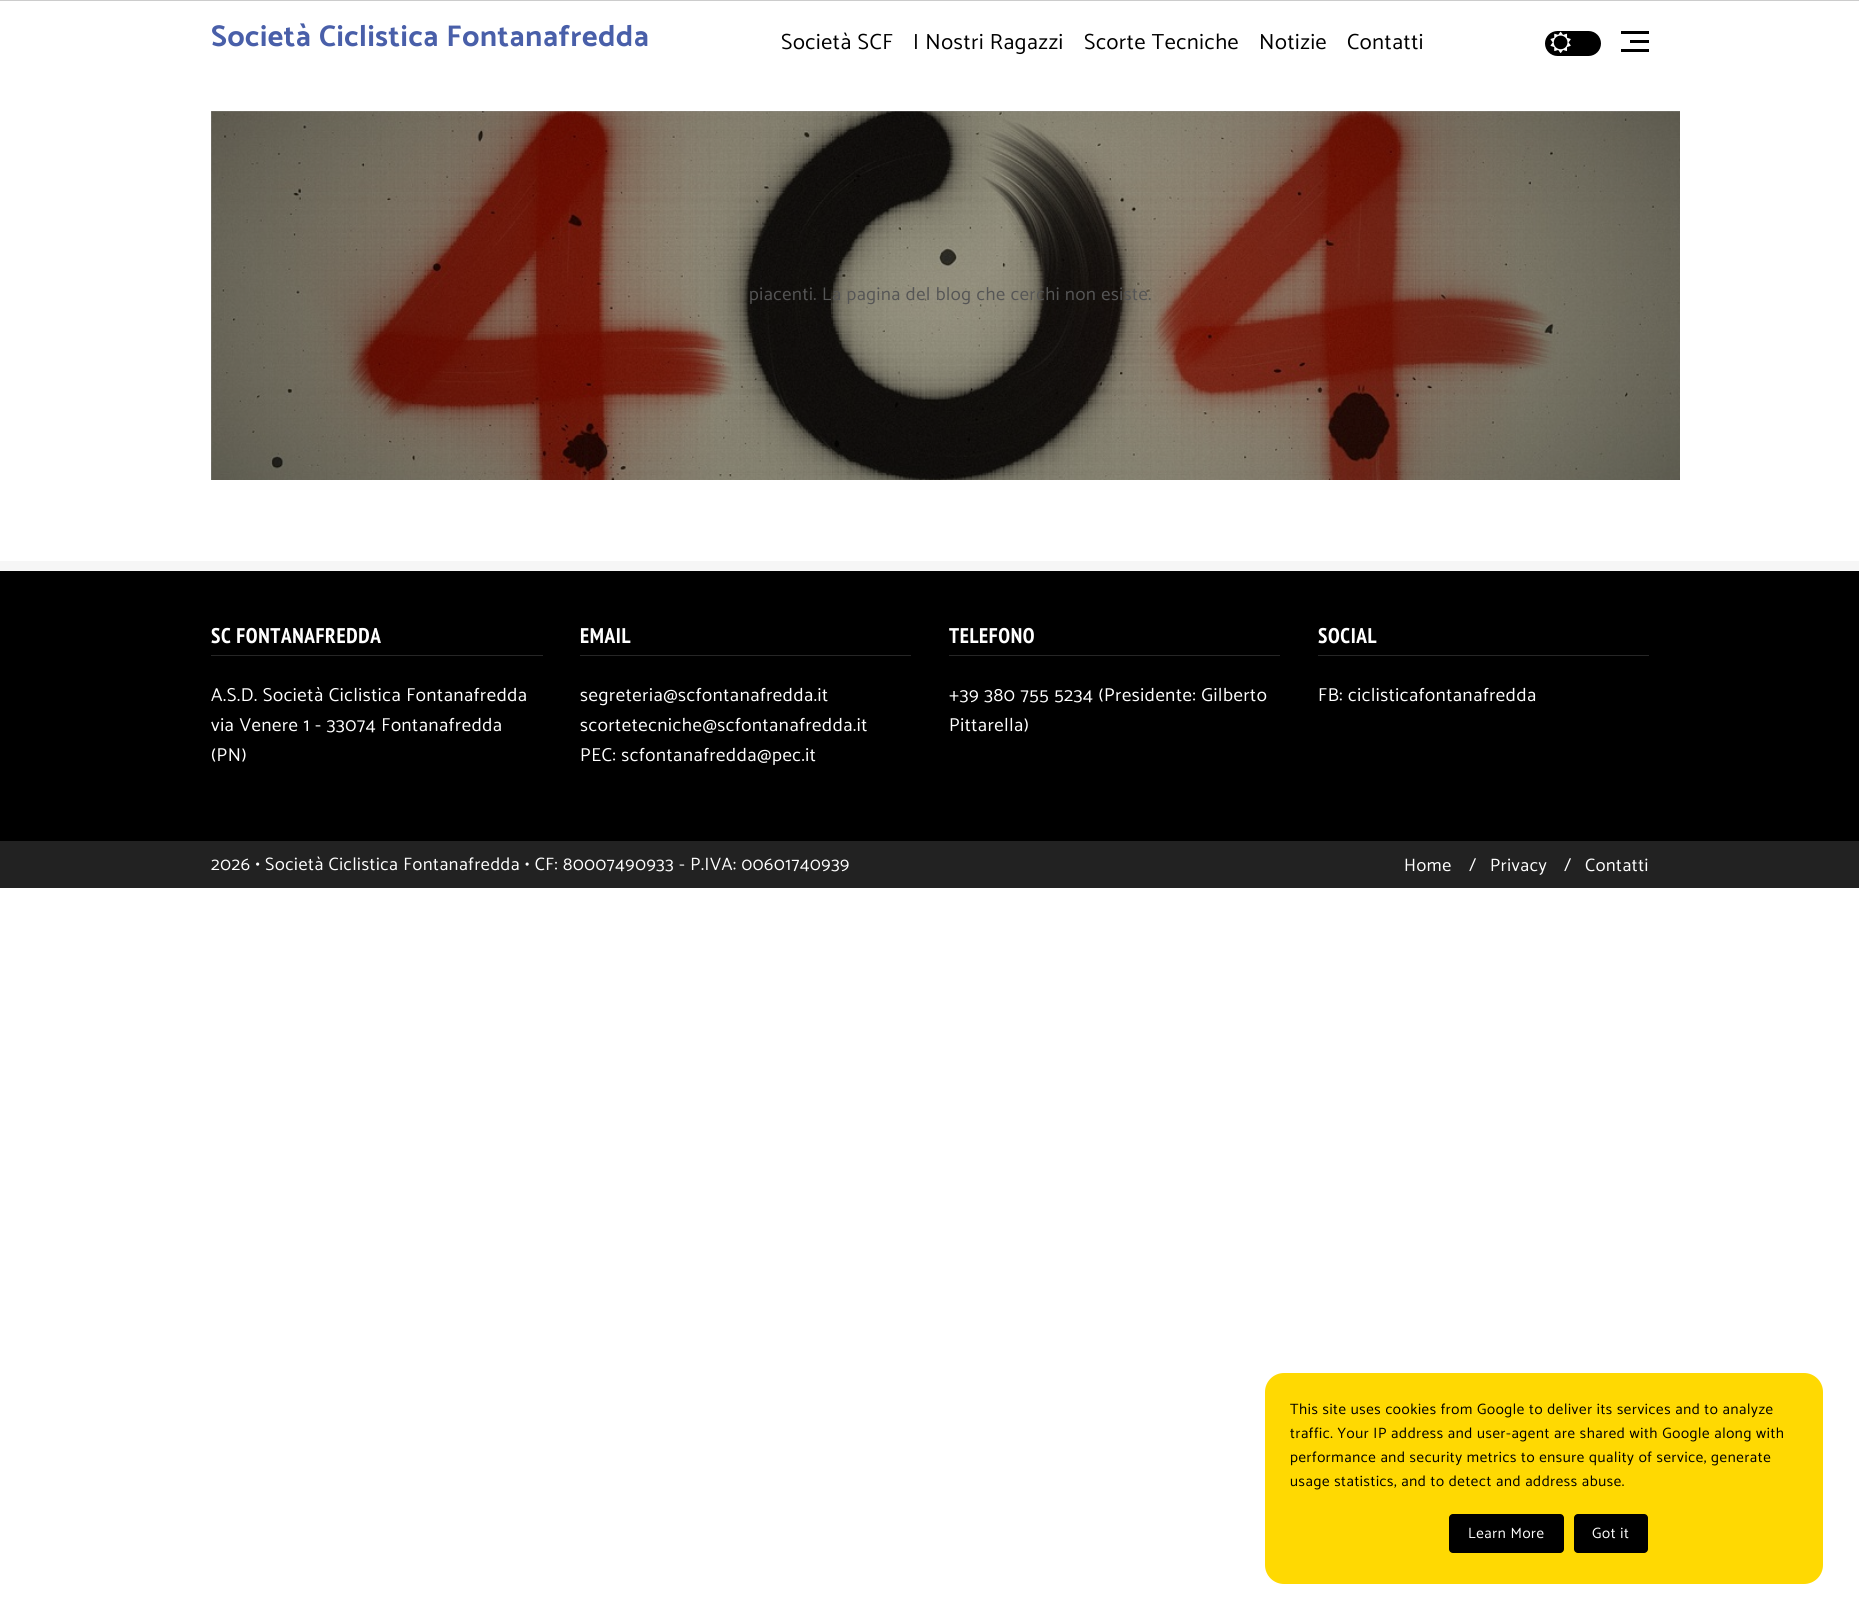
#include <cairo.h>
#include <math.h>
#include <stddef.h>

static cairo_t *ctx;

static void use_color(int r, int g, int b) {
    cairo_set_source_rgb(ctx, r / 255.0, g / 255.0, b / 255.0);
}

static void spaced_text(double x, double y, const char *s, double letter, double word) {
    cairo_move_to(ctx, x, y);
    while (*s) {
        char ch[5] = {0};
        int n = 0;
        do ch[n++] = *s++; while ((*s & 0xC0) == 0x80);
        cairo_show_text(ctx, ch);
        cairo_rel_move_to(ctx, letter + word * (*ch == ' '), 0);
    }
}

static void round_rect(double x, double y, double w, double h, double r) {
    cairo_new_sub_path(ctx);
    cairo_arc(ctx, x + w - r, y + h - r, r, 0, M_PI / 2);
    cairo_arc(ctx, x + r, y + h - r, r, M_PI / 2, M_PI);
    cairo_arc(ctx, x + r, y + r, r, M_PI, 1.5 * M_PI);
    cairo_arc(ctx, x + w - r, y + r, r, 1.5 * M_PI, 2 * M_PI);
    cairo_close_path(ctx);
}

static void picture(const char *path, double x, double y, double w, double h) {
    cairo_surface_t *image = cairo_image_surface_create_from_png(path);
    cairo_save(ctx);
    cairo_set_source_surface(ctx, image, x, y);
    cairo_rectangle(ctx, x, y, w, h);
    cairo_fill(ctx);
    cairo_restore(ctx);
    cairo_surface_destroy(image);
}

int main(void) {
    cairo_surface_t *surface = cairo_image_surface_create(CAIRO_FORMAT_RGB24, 1859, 1621);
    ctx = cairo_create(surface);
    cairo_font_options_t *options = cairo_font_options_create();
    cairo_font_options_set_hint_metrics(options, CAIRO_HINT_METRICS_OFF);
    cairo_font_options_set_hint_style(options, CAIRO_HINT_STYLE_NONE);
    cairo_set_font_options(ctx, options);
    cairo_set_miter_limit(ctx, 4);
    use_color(255, 255, 255);
    cairo_paint(ctx);
    use_color(153, 153, 153);
    cairo_rectangle(ctx, 211, 111, 1469, 369);
    cairo_fill(ctx);
    use_color(204, 204, 204);
    cairo_rectangle(ctx, 0, 0, 1859, 1);
    cairo_fill(ctx);
    cairo_select_font_face(ctx, "Catamaran", CAIRO_FONT_SLANT_NORMAL, CAIRO_FONT_WEIGHT_BOLD);
    cairo_set_font_size(ctx, 30);
    use_color(73, 95, 169);
    spaced_text(211, 46, "Società Ciclistica Fontanafredda", 0.62, 0);
    cairo_select_font_face(ctx, "Catamaran", CAIRO_FONT_SLANT_NORMAL, CAIRO_FONT_WEIGHT_NORMAL);
    cairo_set_font_size(ctx, 22);
    use_color(0, 0, 0);
    spaced_text(781, 49, "Società SCF", 0.62, 0);
    spaced_text(913, 49, "I Nostri Ragazzi", 0.62, 0);
    spaced_text(1084, 49, "Scorte Tecniche", 0.62, 0);
    spaced_text(1259, 49, "Notizie", 0.62, 0);
    spaced_text(1347, 49, "Contatti", 0.62, 0);
    round_rect(1545, 31, 56, 25, 12.5);
    cairo_fill(ctx);
    picture("img1.png", 1550, 31, 21, 22);
    cairo_rectangle(ctx, 1630, 40, 19, 3);
    cairo_fill(ctx);
    cairo_rectangle(ctx, 1621, 31, 28, 3);
    cairo_fill(ctx);
    cairo_rectangle(ctx, 1621, 49, 28, 3);
    cairo_fill(ctx);
    picture("img2.png", 211, 111, 1469, 369);
    cairo_set_font_size(ctx, 18.4);
    use_color(85, 85, 85);
    spaced_text(749, 300, "piacenti. La pagina del blog che cerchi non esiste.", 0.62, 0);
    use_color(0, 0, 0);
    cairo_rectangle(ctx, 0, 571, 1859, 270);
    cairo_fill(ctx);
    use_color(246, 246, 246);
    cairo_rectangle(ctx, 0, 561, 1859, 10);
    cairo_fill(ctx);
    use_color(38, 38, 38);
    cairo_rectangle(ctx, 211, 655, 332, 1);
    cairo_fill(ctx);
    cairo_select_font_face(ctx, "PT Sans Narrow", CAIRO_FONT_SLANT_NORMAL, CAIRO_FONT_WEIGHT_BOLD);
    cairo_set_font_size(ctx, 21.25);
    use_color(255, 255, 255);
    spaced_text(211, 643, "SC FONTANAFREDDA", 0.62, 0);
    cairo_select_font_face(ctx, "Catamaran", CAIRO_FONT_SLANT_NORMAL, CAIRO_FONT_WEIGHT_NORMAL);
    cairo_set_font_size(ctx, 18.75);
    spaced_text(211, 701, "A.S.D. Società Ciclistica Fontanafredda", 0.62, 0);
    spaced_text(211, 731, "via Venere 1 - 33074 Fontanafredda", 0.62, 0);
    spaced_text(211, 761, "(PN)", 0.62, 0);
    use_color(38, 38, 38);
    cairo_rectangle(ctx, 580, 655, 331, 1);
    cairo_fill(ctx);
    cairo_select_font_face(ctx, "PT Sans Narrow", CAIRO_FONT_SLANT_NORMAL, CAIRO_FONT_WEIGHT_BOLD);
    cairo_set_font_size(ctx, 21.25);
    use_color(255, 255, 255);
    spaced_text(580, 643, "EMAIL", 0.62, 0);
    cairo_select_font_face(ctx, "Catamaran", CAIRO_FONT_SLANT_NORMAL, CAIRO_FONT_WEIGHT_NORMAL);
    cairo_set_font_size(ctx, 18.75);
    spaced_text(580, 701, "segreteria@scfontanafredda.it", 0.62, 0);
    spaced_text(580, 731, "scortetecniche@scfontanafredda.it", 0.62, 0);
    spaced_text(580, 761, "PEC: scfontanafredda@pec.it", 0.62, 0);
    use_color(38, 38, 38);
    cairo_rectangle(ctx, 949, 655, 331, 1);
    cairo_fill(ctx);
    cairo_select_font_face(ctx, "PT Sans Narrow", CAIRO_FONT_SLANT_NORMAL, CAIRO_FONT_WEIGHT_BOLD);
    cairo_set_font_size(ctx, 21.25);
    use_color(255, 255, 255);
    spaced_text(949, 643, "TELEFONO", 0.62, 0);
    cairo_select_font_face(ctx, "Catamaran", CAIRO_FONT_SLANT_NORMAL, CAIRO_FONT_WEIGHT_NORMAL);
    cairo_set_font_size(ctx, 18.75);
    spaced_text(949, 701, "+39 380 755 5234 (Presidente: Gilberto", 0.62, 0);
    spaced_text(949, 731, "Pittarella)", 0.62, 0);
    use_color(38, 38, 38);
    cairo_rectangle(ctx, 1318, 655, 331, 1);
    cairo_fill(ctx);
    cairo_select_font_face(ctx, "PT Sans Narrow", CAIRO_FONT_SLANT_NORMAL, CAIRO_FONT_WEIGHT_BOLD);
    cairo_set_font_size(ctx, 21.25);
    use_color(255, 255, 255);
    spaced_text(1318, 643, "SOCIAL", 0.62, 0);
    cairo_select_font_face(ctx, "Catamaran", CAIRO_FONT_SLANT_NORMAL, CAIRO_FONT_WEIGHT_NORMAL);
    cairo_set_font_size(ctx, 18.75);
    spaced_text(1318, 701, "FB: ciclisticafontanafredda", 0.62, 0);
    use_color(34, 34, 34);
    cairo_rectangle(ctx, 0, 841, 1859, 47);
    cairo_fill(ctx);
    cairo_set_font_size(ctx, 18);
    use_color(255, 255, 255);
    spaced_text(211, 870, "2026 • Società Ciclistica Fontanafredda • CF: 80007490933 - P.IVA: 00601740939", 0.62, 0);
    spaced_text(1404, 871, "Home", 0.62, 0);
    spaced_text(1469, 871, "/", 0.62, 0);
    spaced_text(1490, 871, "Privacy", 0.62, 0);
    spaced_text(1564, 871, "/", 0.62, 0);
    spaced_text(1585, 871, "Contatti", 0.62, 0);
    use_color(255, 217, 2);
    round_rect(1265, 1373, 558, 211, 19);
    cairo_fill(ctx);
    cairo_set_font_size(ctx, 15);
    use_color(0, 0, 0);
    spaced_text(1290, 1414, "This site uses cookies from Google to deliver its services and to analyze", 0.62, 0);
    spaced_text(1290, 1438, "traffic. Your IP address and user-agent are shared with Google along with", 0.62, 0);
    spaced_text(1290, 1462, "performance and security metrics to ensure quality of service, generate", 0.62, 0);
    spaced_text(1290, 1486, "usage statistics, and to detect and address abuse.", 0.62, 0);
    round_rect(1449, 1514, 115, 39, 4);
    cairo_fill(ctx);
    use_color(255, 255, 255);
    spaced_text(1468, 1538, "Learn More", 0.62, 0);
    use_color(0, 0, 0);
    round_rect(1574, 1514, 74, 39, 4);
    cairo_fill(ctx);
    use_color(255, 255, 255);
    spaced_text(1592, 1538, "Got it", 0.62, 0);
    cairo_surface_write_to_png(surface, "result.png");
    cairo_font_options_destroy(options);
    cairo_destroy(ctx);
    cairo_surface_destroy(surface);
    return 0;
}
